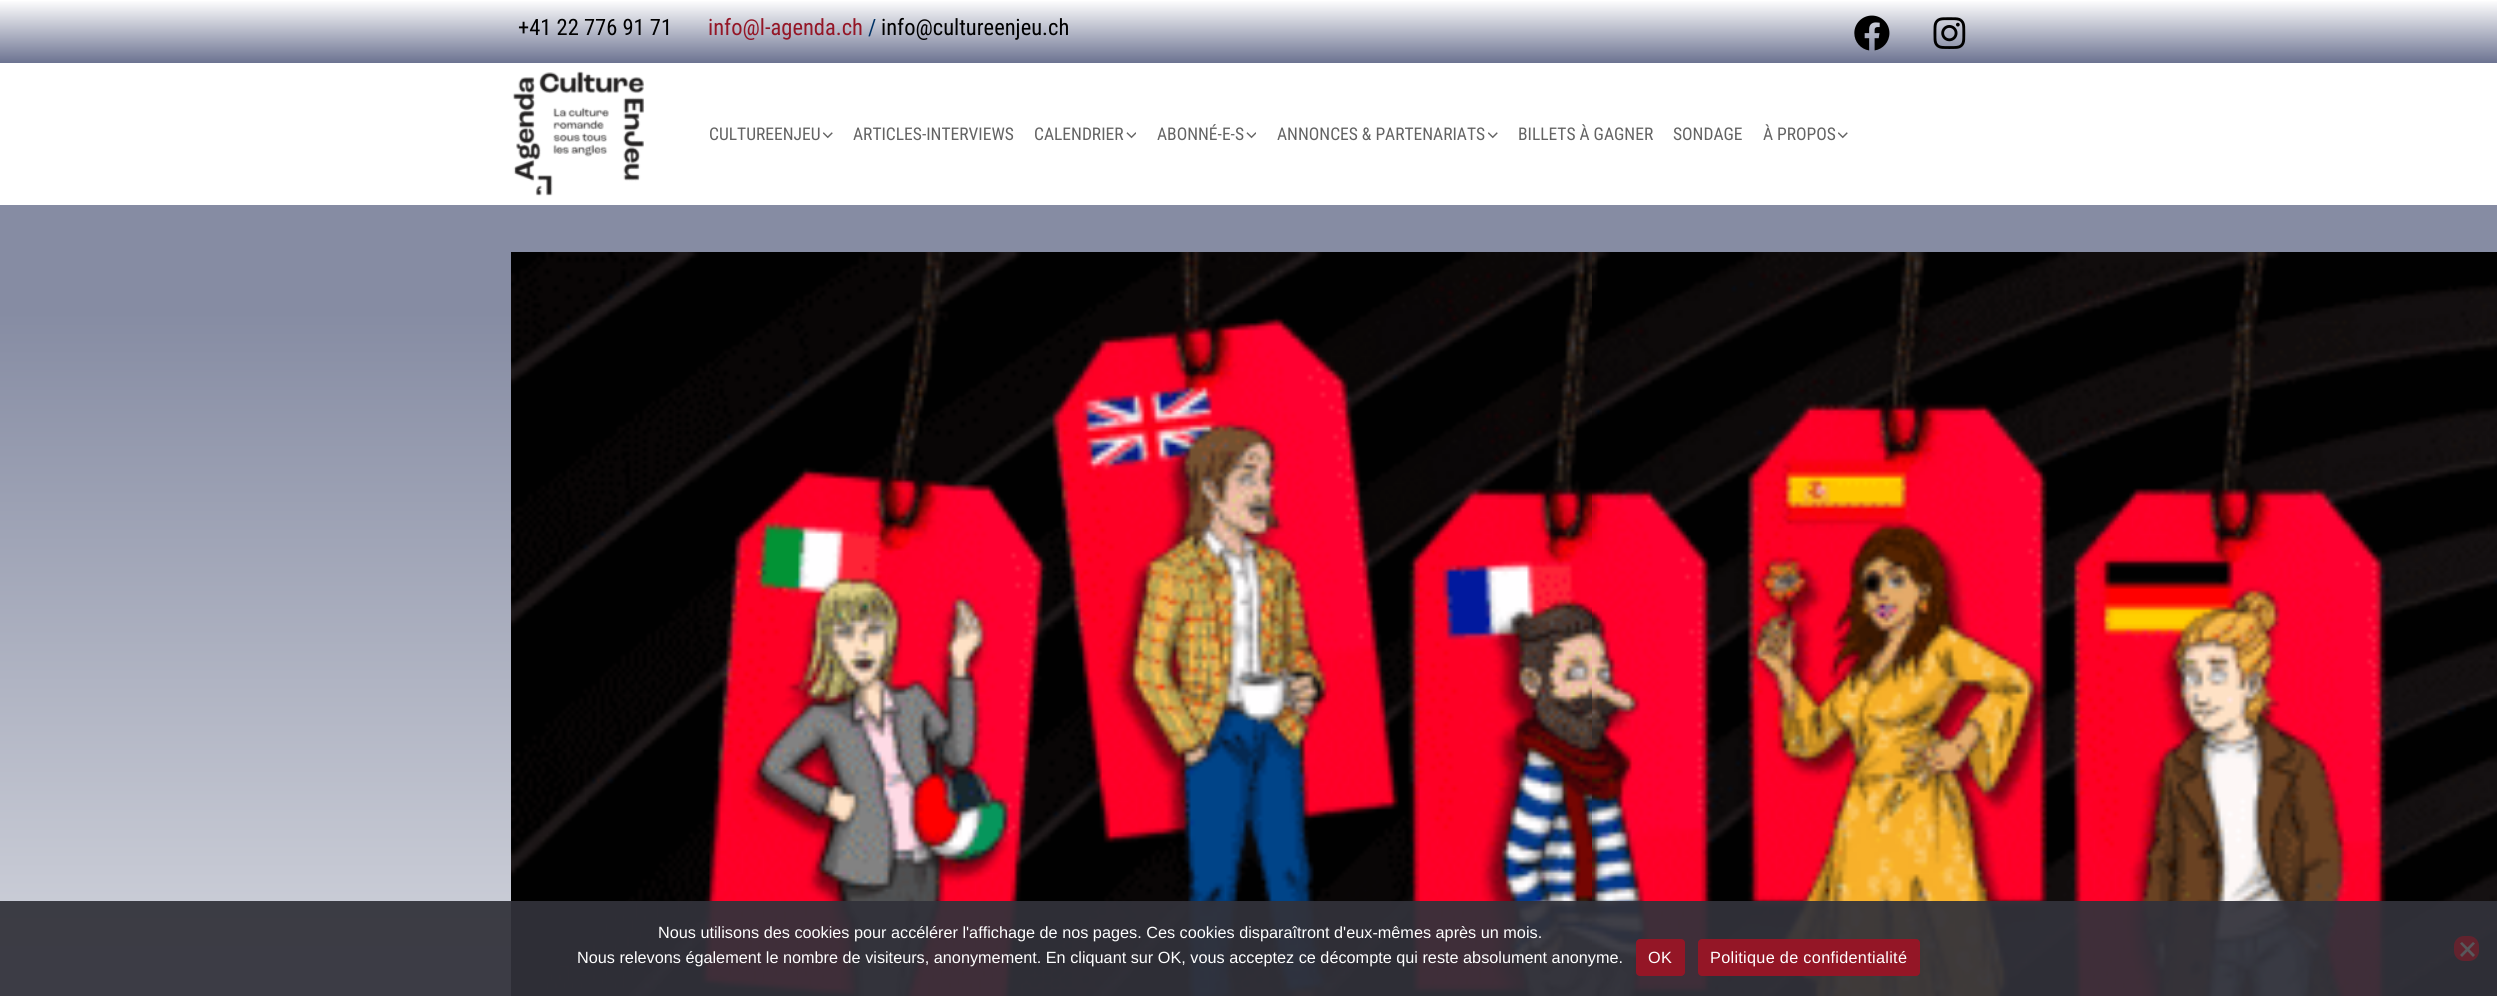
#include <cairo.h>
#include <math.h>
#include <stddef.h>

static cairo_t *ctx;

static void use_color(int r, int g, int b) {
    cairo_set_source_rgb(ctx, r / 255.0, g / 255.0, b / 255.0);
}

static void spaced_text(double x, double y, const char *s, double letter, double word) {
    cairo_move_to(ctx, x, y);
    while (*s) {
        char ch[5] = {0};
        int n = 0;
        do ch[n++] = *s++; while ((*s & 0xC0) == 0x80);
        cairo_show_text(ctx, ch);
        cairo_rel_move_to(ctx, letter + word * (*ch == ' '), 0);
    }
}

static void round_rect(double x, double y, double w, double h, double r) {
    cairo_new_sub_path(ctx);
    cairo_arc(ctx, x + w - r, y + h - r, r, 0, M_PI / 2);
    cairo_arc(ctx, x + r, y + h - r, r, M_PI / 2, M_PI);
    cairo_arc(ctx, x + r, y + r, r, M_PI, 1.5 * M_PI);
    cairo_arc(ctx, x + w - r, y + r, r, 1.5 * M_PI, 2 * M_PI);
    cairo_close_path(ctx);
}

static void picture(const char *path, double x, double y, double w, double h) {
    cairo_surface_t *image = cairo_image_surface_create_from_png(path);
    cairo_save(ctx);
    cairo_set_source_surface(ctx, image, x, y);
    cairo_rectangle(ctx, x, y, w, h);
    cairo_fill(ctx);
    cairo_restore(ctx);
    cairo_surface_destroy(image);
}

int main(void) {
    cairo_surface_t *surface = cairo_image_surface_create(CAIRO_FORMAT_RGB24, 2497, 996);
    ctx = cairo_create(surface);
    cairo_font_options_t *options = cairo_font_options_create();
    cairo_font_options_set_hint_metrics(options, CAIRO_HINT_METRICS_OFF);
    cairo_font_options_set_hint_style(options, CAIRO_HINT_STYLE_NONE);
    cairo_set_font_options(ctx, options);
    cairo_set_miter_limit(ctx, 4);
    cairo_pattern_t *gradient;
    use_color(255, 255, 255);
    cairo_paint(ctx);
    gradient = cairo_pattern_create_linear(1218, 0, 1218, 63);
    cairo_pattern_add_color_stop_rgba(gradient, 0, 1, 1, 1, 1);
    cairo_pattern_add_color_stop_rgba(gradient, 1, 0.424, 0.451, 0.569, 1);
    cairo_set_source(ctx, gradient);
    cairo_pattern_destroy(gradient);
    cairo_rectangle(ctx, 0, 1, 2497, 62);
    cairo_fill(ctx);
    cairo_select_font_face(ctx, "Roboto Condensed", CAIRO_FONT_SLANT_NORMAL, CAIRO_FONT_WEIGHT_NORMAL);
    cairo_set_font_size(ctx, 22.5);
    use_color(0, 0, 0);
    cairo_move_to(ctx, 518, 35);
    cairo_show_text(ctx, "+41 22 776 91 71");
    use_color(148, 22, 38);
    cairo_move_to(ctx, 708, 35);
    cairo_show_text(ctx, "info@l-agenda.ch");
    use_color(0, 51, 102);
    cairo_move_to(ctx, 868, 35);
    cairo_show_text(ctx, "/");
    use_color(0, 0, 0);
    cairo_move_to(ctx, 881, 35);
    cairo_show_text(ctx, "info@cultureenjeu.ch");
    picture("img1.png", 1854, 15, 36, 36);
    picture("img2.png", 1933, 17, 33, 32);
    picture("img3.png", 512, 71, 133, 125);
    cairo_set_font_size(ctx, 17.5);
    use_color(99, 99, 99);
    cairo_move_to(ctx, 709, 140);
    cairo_show_text(ctx, "CULTUREENJEU");
    picture("img4.png", 823, 132, 10, 7);
    cairo_move_to(ctx, 853, 140);
    cairo_show_text(ctx, "ARTICLES-INTERVIEWS");
    cairo_move_to(ctx, 1034, 140);
    cairo_show_text(ctx, "CALENDRIER");
    picture("img5.png", 1126, 132, 10, 7);
    cairo_move_to(ctx, 1157, 140);
    cairo_show_text(ctx, "ABONNÉ-E-S");
    picture("img5.png", 1246, 132, 10, 7);
    cairo_move_to(ctx, 1277, 140);
    cairo_show_text(ctx, "ANNONCES & PARTENARIATS");
    picture("img4.png", 1488, 132, 10, 7);
    cairo_move_to(ctx, 1518, 140);
    cairo_show_text(ctx, "BILLETS À GAGNER");
    cairo_move_to(ctx, 1673, 140);
    cairo_show_text(ctx, "SONDAGE");
    cairo_move_to(ctx, 1763, 140);
    cairo_show_text(ctx, "À PROPOS");
    picture("img4.png", 1838, 132, 10, 7);
    gradient = cairo_pattern_create_linear(1249, 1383, 1249, 205);
    cairo_pattern_add_color_stop_rgba(gradient, 0, 1, 1, 1, 1);
    cairo_pattern_add_color_stop_rgba(gradient, 0.91, 0.525, 0.549, 0.639, 1);
    cairo_set_source(ctx, gradient);
    cairo_pattern_destroy(gradient);
    cairo_rectangle(ctx, 0, 205, 2497, 791);
    cairo_fill(ctx);
    picture("img6.png", 511, 252, 1986, 744);
    cairo_set_source_rgba(ctx, 0.196, 0.196, 0.227, 0.93);
    cairo_rectangle(ctx, 0, 901, 2497, 95);
    cairo_fill(ctx);
    cairo_select_font_face(ctx, "Liberation Sans", CAIRO_FONT_SLANT_NORMAL, CAIRO_FONT_WEIGHT_NORMAL);
    cairo_set_font_size(ctx, 16.25);
    use_color(255, 255, 255);
    cairo_move_to(ctx, 658, 938);
    cairo_show_text(ctx, "Nous utilisons des cookies pour accélérer l'affichage de nos pages. Ces cookies disparaîtront d'eux-mêmes après un mois.");
    cairo_move_to(ctx, 577, 963);
    cairo_show_text(ctx, "Nous relevons également le nombre de visiteurs, anonymement. En cliquant sur OK, vous acceptez ce décompte qui reste absolument anonyme.");
    use_color(148, 22, 38);
    round_rect(1636, 939, 49, 37, 4);
    cairo_fill(ctx);
    use_color(255, 255, 255);
    spaced_text(1648, 963, "OK", 0.3, 0);
    use_color(148, 22, 38);
    round_rect(1698, 939, 222, 37, 4);
    cairo_fill(ctx);
    use_color(255, 255, 255);
    spaced_text(1710, 963, "Politique de confidentialité", 0.3, 0);
    use_color(98, 35, 46);
    round_rect(2454, 936, 25, 25, 10);
    cairo_fill(ctx);
    use_color(87, 87, 91);
    cairo_new_path(ctx);
    cairo_move_to(ctx, 2473, 942);
    cairo_line_to(ctx, 2475, 943.5);
    cairo_line_to(ctx, 2462, 957);
    cairo_line_to(ctx, 2460, 955);
    cairo_close_path(ctx);
    cairo_fill(ctx);
    use_color(88, 88, 91);
    cairo_new_path(ctx);
    cairo_move_to(ctx, 2460, 943.5);
    cairo_line_to(ctx, 2462, 942);
    cairo_line_to(ctx, 2475, 955);
    cairo_line_to(ctx, 2473, 957);
    cairo_close_path(ctx);
    cairo_fill(ctx);
    cairo_surface_write_to_png(surface, "result.png");
    cairo_font_options_destroy(options);
    cairo_destroy(ctx);
    cairo_surface_destroy(surface);
    return 0;
}
